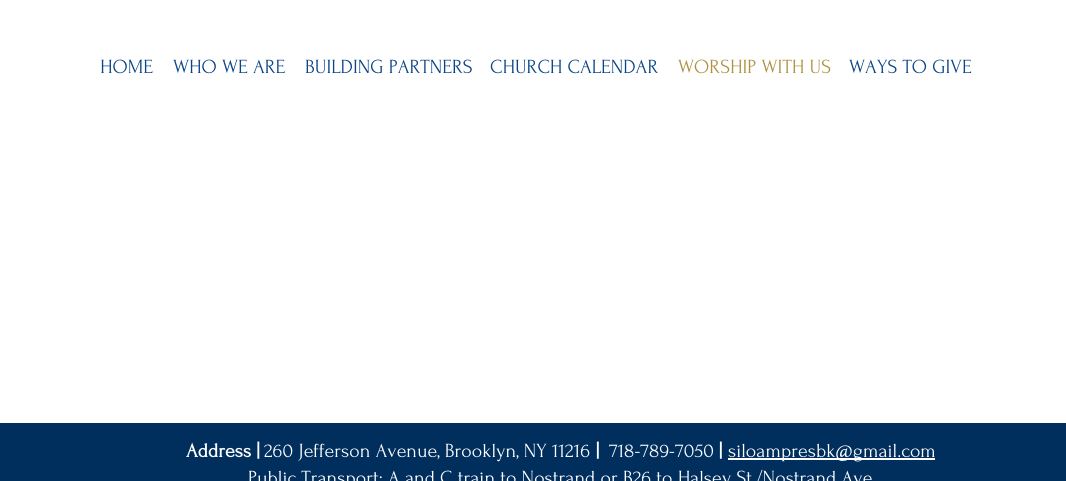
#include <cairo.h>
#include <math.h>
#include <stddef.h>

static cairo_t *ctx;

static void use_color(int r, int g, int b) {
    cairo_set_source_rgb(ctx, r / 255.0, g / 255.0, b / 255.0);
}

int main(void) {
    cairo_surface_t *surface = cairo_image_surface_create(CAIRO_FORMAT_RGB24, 1066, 481);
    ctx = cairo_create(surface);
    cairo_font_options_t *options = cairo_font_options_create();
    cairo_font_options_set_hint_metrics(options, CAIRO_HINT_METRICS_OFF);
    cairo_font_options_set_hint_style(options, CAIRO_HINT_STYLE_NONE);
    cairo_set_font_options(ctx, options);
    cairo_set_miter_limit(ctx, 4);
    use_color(255, 255, 255);
    cairo_paint(ctx);
    cairo_select_font_face(ctx, "Forum", CAIRO_FONT_SLANT_NORMAL, CAIRO_FONT_WEIGHT_NORMAL);
    cairo_set_font_size(ctx, 20);
    use_color(9, 68, 135);
    cairo_move_to(ctx, 100, 73);
    cairo_show_text(ctx, "HOME");
    cairo_move_to(ctx, 173, 73);
    cairo_show_text(ctx, "WHO WE ARE");
    cairo_move_to(ctx, 305, 73);
    cairo_show_text(ctx, "BUILDING PARTNERS");
    cairo_move_to(ctx, 490, 73);
    cairo_show_text(ctx, "CHURCH CALENDAR");
    use_color(172, 145, 64);
    cairo_move_to(ctx, 678, 73);
    cairo_show_text(ctx, "WORSHIP WITH US");
    use_color(9, 68, 135);
    cairo_move_to(ctx, 849, 73);
    cairo_show_text(ctx, "WAYS TO GIVE");
    use_color(0, 46, 93);
    cairo_rectangle(ctx, 0, 423, 1066, 58);
    cairo_fill(ctx);
    cairo_select_font_face(ctx, "Forum", CAIRO_FONT_SLANT_NORMAL, CAIRO_FONT_WEIGHT_BOLD);
    use_color(255, 255, 255);
    cairo_move_to(ctx, 186, 457);
    cairo_show_text(ctx, "Address |");
    cairo_select_font_face(ctx, "Forum", CAIRO_FONT_SLANT_NORMAL, CAIRO_FONT_WEIGHT_NORMAL);
    cairo_move_to(ctx, 264, 457);
    cairo_show_text(ctx, "260 Jefferson Avenue, Brooklyn, NY 11216");
    cairo_select_font_face(ctx, "Forum", CAIRO_FONT_SLANT_NORMAL, CAIRO_FONT_WEIGHT_BOLD);
    cairo_move_to(ctx, 596, 457);
    cairo_show_text(ctx, "|");
    cairo_select_font_face(ctx, "Forum", CAIRO_FONT_SLANT_NORMAL, CAIRO_FONT_WEIGHT_NORMAL);
    cairo_move_to(ctx, 609, 457);
    cairo_show_text(ctx, "718-789-7050");
    cairo_select_font_face(ctx, "Forum", CAIRO_FONT_SLANT_NORMAL, CAIRO_FONT_WEIGHT_BOLD);
    cairo_move_to(ctx, 719, 457);
    cairo_show_text(ctx, "|");
    cairo_rectangle(ctx, 728, 458, 207, 2);
    cairo_fill(ctx);
    cairo_select_font_face(ctx, "Forum", CAIRO_FONT_SLANT_NORMAL, CAIRO_FONT_WEIGHT_NORMAL);
    cairo_move_to(ctx, 728, 457);
    cairo_show_text(ctx, "siloampresbk@gmail.com");
    cairo_move_to(ctx, 248, 484);
    cairo_show_text(ctx, "Public Transport: A and C train to Nostrand or B26 to Halsey St./Nostrand Ave");
    cairo_surface_write_to_png(surface, "result.png");
    cairo_font_options_destroy(options);
    cairo_destroy(ctx);
    cairo_surface_destroy(surface);
    return 0;
}
